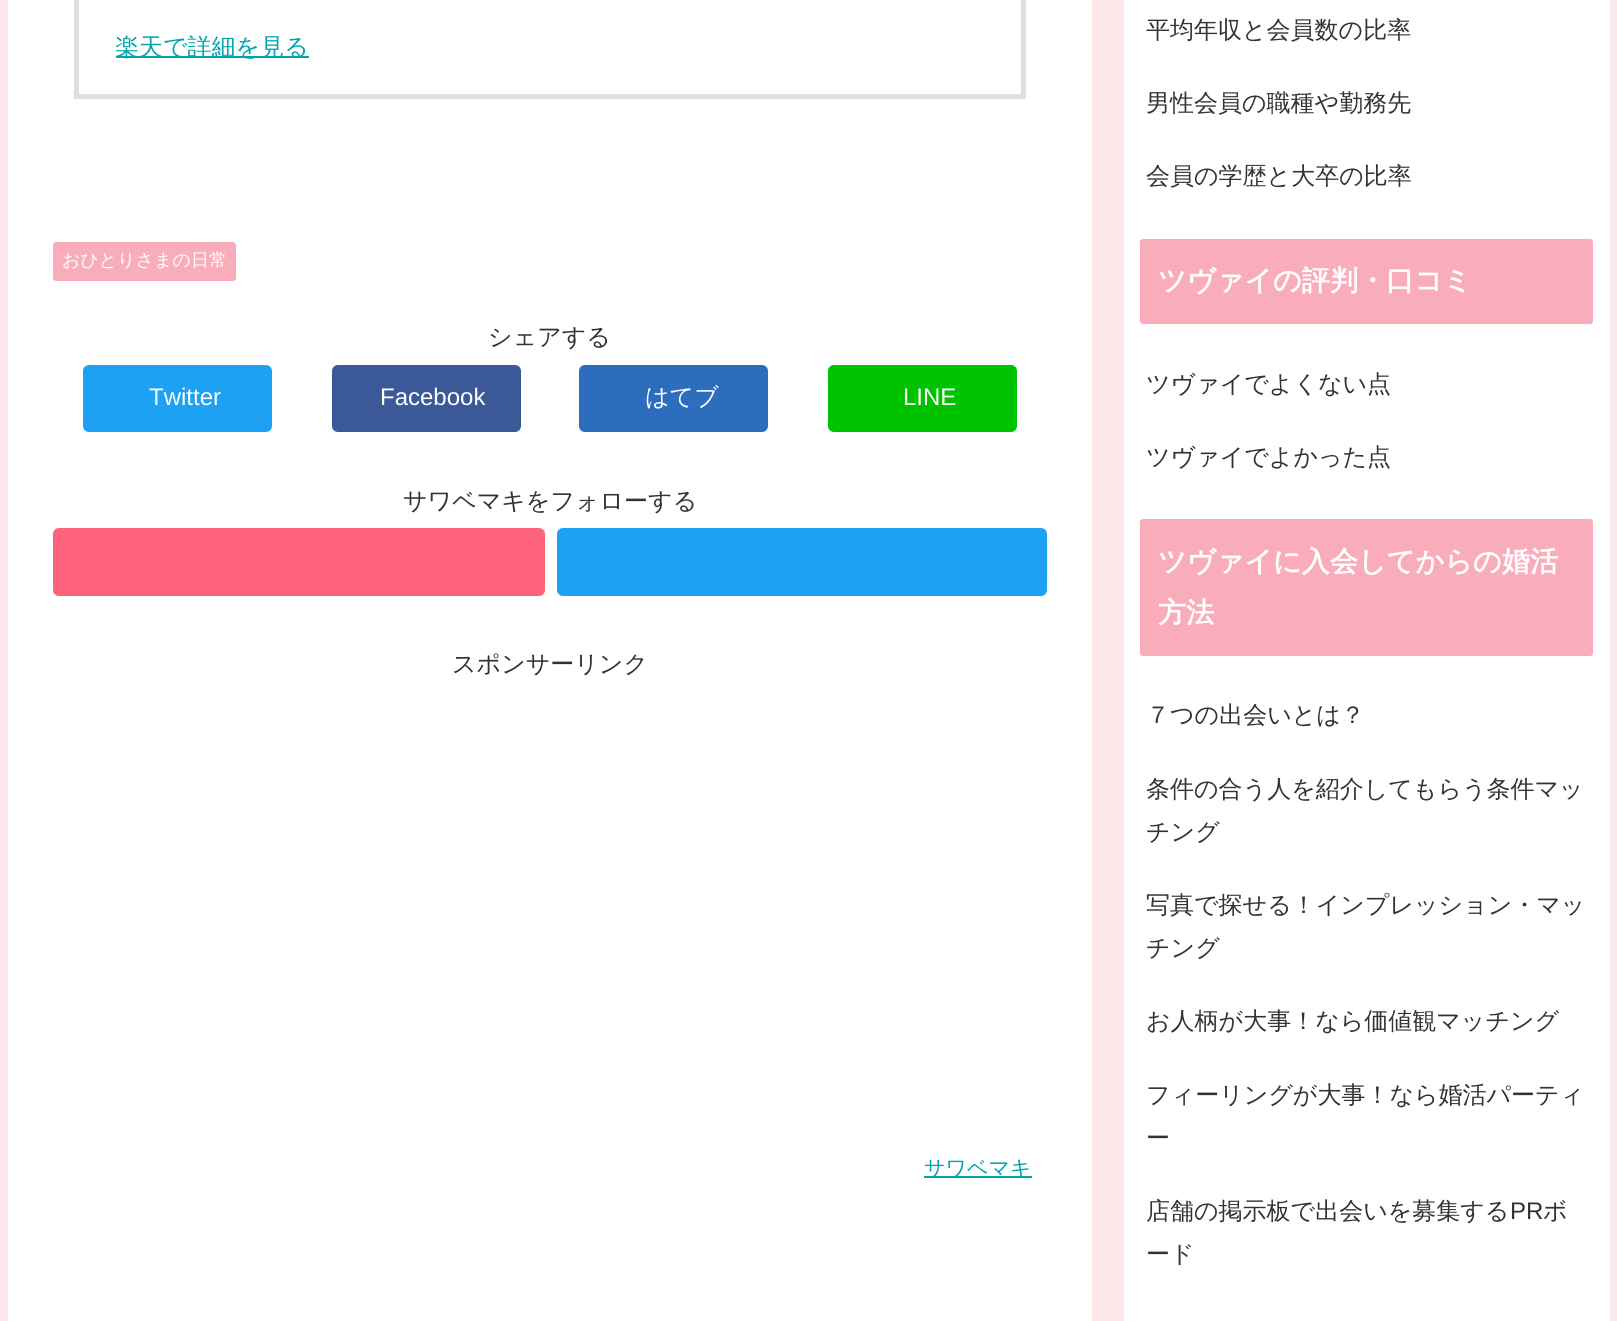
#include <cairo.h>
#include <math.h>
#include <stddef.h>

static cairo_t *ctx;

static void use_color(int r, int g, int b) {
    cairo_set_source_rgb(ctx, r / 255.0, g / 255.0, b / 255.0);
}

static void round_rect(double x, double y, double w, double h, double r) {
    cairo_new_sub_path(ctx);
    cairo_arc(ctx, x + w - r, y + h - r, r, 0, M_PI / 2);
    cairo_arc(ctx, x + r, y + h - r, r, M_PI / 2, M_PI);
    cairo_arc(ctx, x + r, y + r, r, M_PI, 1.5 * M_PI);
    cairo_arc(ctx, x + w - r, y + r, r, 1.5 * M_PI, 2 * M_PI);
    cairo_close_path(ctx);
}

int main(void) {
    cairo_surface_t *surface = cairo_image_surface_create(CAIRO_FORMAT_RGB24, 1617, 1321);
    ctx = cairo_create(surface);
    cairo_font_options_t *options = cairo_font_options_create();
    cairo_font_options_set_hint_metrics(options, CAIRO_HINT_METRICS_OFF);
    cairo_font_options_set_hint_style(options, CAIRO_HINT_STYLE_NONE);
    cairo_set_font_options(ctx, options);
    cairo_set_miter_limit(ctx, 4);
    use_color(252, 232, 235);
    cairo_paint(ctx);
    use_color(255, 255, 255);
    cairo_rectangle(ctx, 8, 0, 1084, 1321);
    cairo_fill(ctx);
    cairo_rectangle(ctx, 76.5, -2.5, 947, 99);
    use_color(223, 223, 223);
    cairo_set_line_width(ctx, 5);
    cairo_stroke(ctx);
    use_color(0, 163, 175);
    cairo_rectangle(ctx, 116, 56, 193, 2);
    cairo_fill(ctx);
    cairo_select_font_face(ctx, "WenQuanYi Zen Hei Medium", CAIRO_FONT_SLANT_NORMAL, CAIRO_FONT_WEIGHT_NORMAL);
    cairo_set_font_size(ctx, 24);
    cairo_move_to(ctx, 115, 55);
    cairo_show_text(ctx, "楽天で詳細を見る");
    use_color(249, 173, 187);
    round_rect(53, 242, 183, 39, 3);
    cairo_fill(ctx);
    cairo_set_font_size(ctx, 18);
    use_color(255, 255, 255);
    cairo_move_to(ctx, 62, 266);
    cairo_show_text(ctx, "おひとりさまの日常");
    cairo_set_font_size(ctx, 24);
    use_color(51, 51, 51);
    cairo_move_to(ctx, 488, 345);
    cairo_show_text(ctx, "シェアする");
    use_color(29, 161, 242);
    round_rect(83, 365, 189, 67, 6);
    cairo_fill(ctx);
    cairo_select_font_face(ctx, "Liberation Sans", CAIRO_FONT_SLANT_NORMAL, CAIRO_FONT_WEIGHT_NORMAL);
    use_color(255, 255, 255);
    cairo_move_to(ctx, 149, 405);
    cairo_show_text(ctx, "Twitter");
    use_color(59, 89, 152);
    round_rect(332, 365, 189, 67, 6);
    cairo_fill(ctx);
    use_color(255, 255, 255);
    cairo_move_to(ctx, 380, 405);
    cairo_show_text(ctx, "Facebook");
    use_color(44, 110, 189);
    round_rect(579, 365, 189, 67, 6);
    cairo_fill(ctx);
    cairo_select_font_face(ctx, "WenQuanYi Zen Hei Medium", CAIRO_FONT_SLANT_NORMAL, CAIRO_FONT_WEIGHT_NORMAL);
    use_color(255, 255, 255);
    cairo_move_to(ctx, 645, 405);
    cairo_show_text(ctx, "はてブ");
    use_color(0, 195, 0);
    round_rect(828, 365, 189, 67, 6);
    cairo_fill(ctx);
    cairo_select_font_face(ctx, "Liberation Sans", CAIRO_FONT_SLANT_NORMAL, CAIRO_FONT_WEIGHT_NORMAL);
    use_color(255, 255, 255);
    cairo_move_to(ctx, 903, 405);
    cairo_show_text(ctx, "LINE");
    cairo_select_font_face(ctx, "WenQuanYi Zen Hei Medium", CAIRO_FONT_SLANT_NORMAL, CAIRO_FONT_WEIGHT_NORMAL);
    use_color(51, 51, 51);
    cairo_move_to(ctx, 403, 509);
    cairo_show_text(ctx, "サワベマキをフォローする");
    use_color(255, 99, 124);
    round_rect(53, 528, 492, 68, 6);
    cairo_fill(ctx);
    use_color(29, 161, 242);
    round_rect(557, 528, 490, 68, 6);
    cairo_fill(ctx);
    use_color(51, 51, 51);
    cairo_move_to(ctx, 452, 672);
    cairo_show_text(ctx, "スポンサーリンク");
    use_color(0, 163, 175);
    cairo_rectangle(ctx, 924, 1176, 108, 2);
    cairo_fill(ctx);
    cairo_set_font_size(ctx, 21);
    cairo_move_to(ctx, 924, 1175);
    cairo_show_text(ctx, "サワベマキ");
    use_color(255, 255, 255);
    cairo_rectangle(ctx, 1124, 0, 486, 1321);
    cairo_fill(ctx);
    cairo_set_font_size(ctx, 24);
    use_color(51, 51, 51);
    cairo_move_to(ctx, 1146, 38);
    cairo_show_text(ctx, "平均年収と会員数の比率");
    cairo_move_to(ctx, 1146, 111);
    cairo_show_text(ctx, "男性会員の職種や勤務先");
    cairo_move_to(ctx, 1146, 184);
    cairo_show_text(ctx, "会員の学歴と大卒の比率");
    use_color(249, 173, 187);
    round_rect(1140, 239, 453, 85, 3);
    cairo_fill(ctx);
    cairo_select_font_face(ctx, "WenQuanYi Zen Hei", CAIRO_FONT_SLANT_NORMAL, CAIRO_FONT_WEIGHT_BOLD);
    cairo_set_font_size(ctx, 28.1);
    use_color(255, 255, 255);
    cairo_move_to(ctx, 1158, 290);
    cairo_show_text(ctx, "ツヴァイの評判・口コミ");
    cairo_select_font_face(ctx, "WenQuanYi Zen Hei Medium", CAIRO_FONT_SLANT_NORMAL, CAIRO_FONT_WEIGHT_NORMAL);
    cairo_set_font_size(ctx, 24);
    use_color(51, 51, 51);
    cairo_move_to(ctx, 1146, 392);
    cairo_show_text(ctx, "ツヴァイでよくない点");
    cairo_move_to(ctx, 1146, 465);
    cairo_show_text(ctx, "ツヴァイでよかった点");
    use_color(249, 173, 187);
    round_rect(1140, 519, 453, 137, 3);
    cairo_fill(ctx);
    cairo_select_font_face(ctx, "WenQuanYi Zen Hei", CAIRO_FONT_SLANT_NORMAL, CAIRO_FONT_WEIGHT_BOLD);
    cairo_set_font_size(ctx, 28.1);
    use_color(255, 255, 255);
    cairo_move_to(ctx, 1158, 571);
    cairo_show_text(ctx, "ツヴァイに入会してからの婚活");
    cairo_move_to(ctx, 1158, 622);
    cairo_show_text(ctx, "方法");
    cairo_select_font_face(ctx, "WenQuanYi Zen Hei Medium", CAIRO_FONT_SLANT_NORMAL, CAIRO_FONT_WEIGHT_NORMAL);
    cairo_set_font_size(ctx, 24);
    use_color(51, 51, 51);
    cairo_move_to(ctx, 1146, 723);
    cairo_show_text(ctx, "７つの出会いとは？");
    cairo_move_to(ctx, 1146, 797);
    cairo_show_text(ctx, "条件の合う人を紹介してもらう条件マッ");
    cairo_move_to(ctx, 1146, 840);
    cairo_show_text(ctx, "チング");
    cairo_move_to(ctx, 1146, 913);
    cairo_show_text(ctx, "写真で探せる！インプレッション・マッ");
    cairo_move_to(ctx, 1146, 956);
    cairo_show_text(ctx, "チング");
    cairo_move_to(ctx, 1146, 1029);
    cairo_show_text(ctx, "お人柄が大事！なら価値観マッチング");
    cairo_move_to(ctx, 1146, 1103);
    cairo_show_text(ctx, "フィーリングが大事！なら婚活パーティ");
    cairo_move_to(ctx, 1146, 1146);
    cairo_show_text(ctx, "ー");
    cairo_move_to(ctx, 1146, 1219);
    cairo_show_text(ctx, "店舗の掲示板で出会いを募集する");
    cairo_select_font_face(ctx, "Liberation Sans", CAIRO_FONT_SLANT_NORMAL, CAIRO_FONT_WEIGHT_NORMAL);
    cairo_move_to(ctx, 1510, 1219);
    cairo_show_text(ctx, "PR");
    cairo_select_font_face(ctx, "WenQuanYi Zen Hei Medium", CAIRO_FONT_SLANT_NORMAL, CAIRO_FONT_WEIGHT_NORMAL);
    cairo_move_to(ctx, 1543, 1219);
    cairo_show_text(ctx, "ボ");
    cairo_move_to(ctx, 1146, 1262);
    cairo_show_text(ctx, "ード");
    cairo_surface_write_to_png(surface, "result.png");
    cairo_font_options_destroy(options);
    cairo_destroy(ctx);
    cairo_surface_destroy(surface);
    return 0;
}
